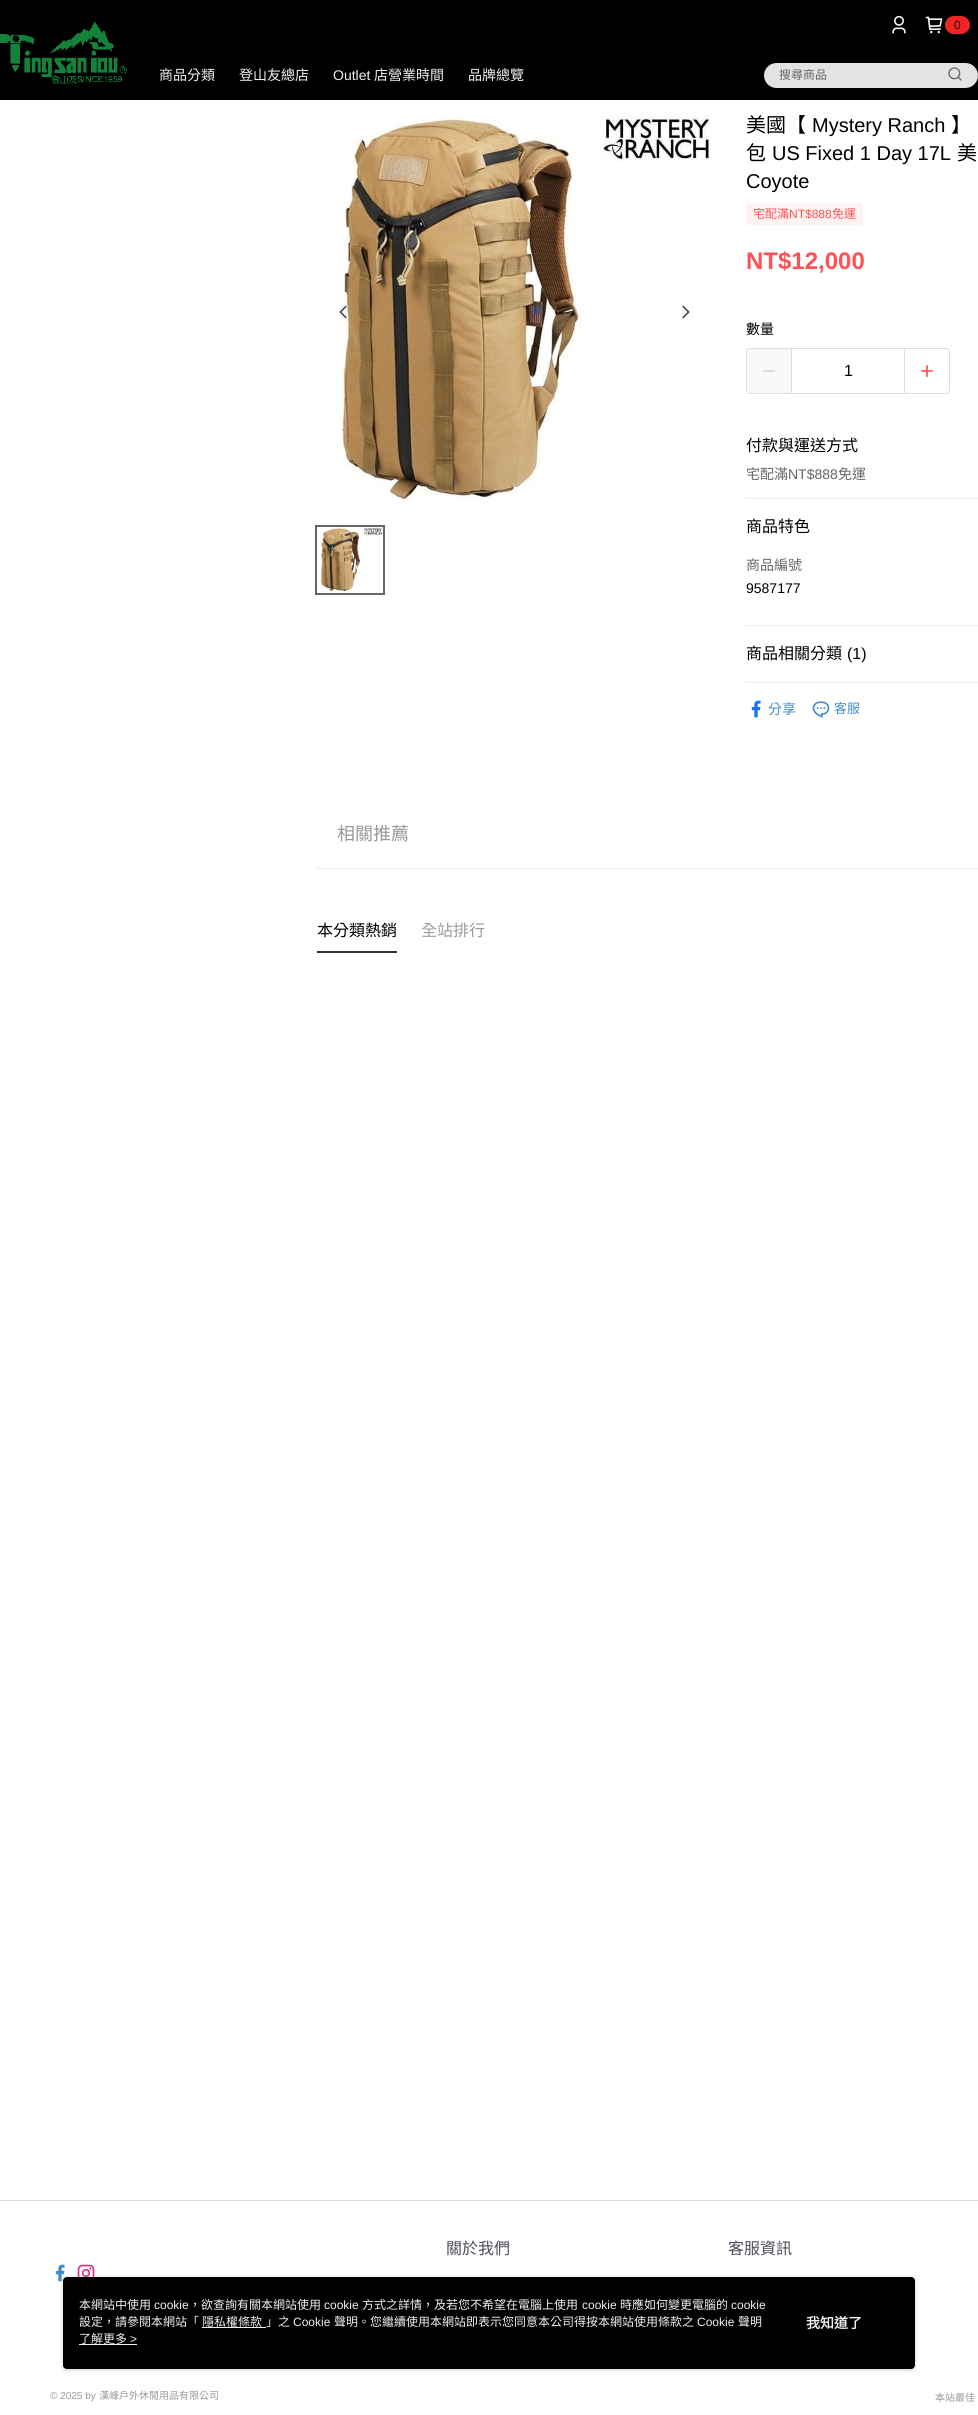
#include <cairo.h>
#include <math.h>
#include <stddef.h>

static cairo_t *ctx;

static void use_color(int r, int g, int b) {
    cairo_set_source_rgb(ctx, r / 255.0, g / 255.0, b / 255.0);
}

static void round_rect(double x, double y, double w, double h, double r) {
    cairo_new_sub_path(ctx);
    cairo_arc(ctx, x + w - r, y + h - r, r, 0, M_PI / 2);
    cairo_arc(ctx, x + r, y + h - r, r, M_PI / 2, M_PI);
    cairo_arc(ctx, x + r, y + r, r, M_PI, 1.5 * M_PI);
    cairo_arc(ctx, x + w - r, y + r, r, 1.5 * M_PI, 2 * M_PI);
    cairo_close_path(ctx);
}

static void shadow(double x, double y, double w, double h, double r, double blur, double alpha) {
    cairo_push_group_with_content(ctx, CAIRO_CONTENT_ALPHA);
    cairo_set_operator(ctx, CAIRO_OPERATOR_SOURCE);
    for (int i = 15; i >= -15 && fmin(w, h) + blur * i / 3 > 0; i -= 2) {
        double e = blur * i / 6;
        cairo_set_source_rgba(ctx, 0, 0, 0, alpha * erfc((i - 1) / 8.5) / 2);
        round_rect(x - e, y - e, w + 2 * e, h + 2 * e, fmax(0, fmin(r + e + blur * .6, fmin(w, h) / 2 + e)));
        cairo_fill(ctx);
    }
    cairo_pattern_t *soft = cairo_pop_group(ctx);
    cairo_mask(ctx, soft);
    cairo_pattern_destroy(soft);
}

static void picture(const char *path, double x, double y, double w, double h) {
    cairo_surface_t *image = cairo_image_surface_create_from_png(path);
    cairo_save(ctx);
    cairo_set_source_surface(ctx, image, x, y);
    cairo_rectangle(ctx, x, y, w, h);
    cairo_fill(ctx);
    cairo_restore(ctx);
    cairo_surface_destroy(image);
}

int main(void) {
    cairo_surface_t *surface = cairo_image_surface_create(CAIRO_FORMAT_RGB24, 978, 2415);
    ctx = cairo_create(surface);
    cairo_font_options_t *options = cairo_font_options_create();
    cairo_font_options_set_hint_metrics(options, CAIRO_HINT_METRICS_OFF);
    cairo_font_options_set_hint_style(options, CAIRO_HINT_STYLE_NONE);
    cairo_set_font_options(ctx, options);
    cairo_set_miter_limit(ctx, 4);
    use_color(255, 255, 255);
    cairo_paint(ctx);
    use_color(0, 0, 0);
    cairo_rectangle(ctx, 0, 0, 978, 100);
    cairo_fill(ctx);
    picture("img1.png", 0, 21, 127, 63);
    picture("img2.png", 892, 15, 14, 19);
    picture("img3.png", 925, 16, 18, 18);
    use_color(239, 36, 36);
    round_rect(945, 16, 25, 18, 9);
    cairo_fill(ctx);
    cairo_select_font_face(ctx, "Liberation Sans", CAIRO_FONT_SLANT_NORMAL, CAIRO_FONT_WEIGHT_NORMAL);
    cairo_set_font_size(ctx, 12);
    use_color(57, 3, 3);
    cairo_move_to(ctx, 954, 29);
    cairo_show_text(ctx, "0");
    cairo_select_font_face(ctx, "Noto Sans CJK TC", CAIRO_FONT_SLANT_NORMAL, CAIRO_FONT_WEIGHT_NORMAL);
    cairo_set_font_size(ctx, 14);
    use_color(241, 241, 241);
    cairo_move_to(ctx, 159, 80);
    cairo_show_text(ctx, "商品分類");
    cairo_move_to(ctx, 239, 80);
    cairo_show_text(ctx, "登山友總店");
    cairo_select_font_face(ctx, "Liberation Sans", CAIRO_FONT_SLANT_NORMAL, CAIRO_FONT_WEIGHT_NORMAL);
    cairo_move_to(ctx, 333, 80);
    cairo_show_text(ctx, "Outlet");
    cairo_select_font_face(ctx, "Noto Sans CJK TC", CAIRO_FONT_SLANT_NORMAL, CAIRO_FONT_WEIGHT_NORMAL);
    cairo_move_to(ctx, 374, 80);
    cairo_show_text(ctx, "店營業時間");
    cairo_move_to(ctx, 468, 80);
    cairo_show_text(ctx, "品牌總覽");
    use_color(228, 226, 226);
    round_rect(764, 63, 214, 25, 12.5);
    cairo_fill(ctx);
    cairo_set_font_size(ctx, 12);
    use_color(102, 102, 102);
    cairo_move_to(ctx, 779, 79);
    cairo_show_text(ctx, "搜尋商品");
    picture("img4.png", 948, 67, 14, 14);
    picture("img5.png", 335, 115, 375, 389);
    picture("img6.png", 339, 305, 8, 14);
    picture("img7.png", 682, 305, 8, 14);
    picture("img8.png", 320, 527, 63, 65);
    cairo_rectangle(ctx, 316, 526, 68, 68);
    cairo_stroke(ctx);
    cairo_set_font_size(ctx, 20);
    use_color(0, 0, 0);
    cairo_move_to(ctx, 746, 132);
    cairo_show_text(ctx, "美國【");
    cairo_select_font_face(ctx, "Liberation Sans", CAIRO_FONT_SLANT_NORMAL, CAIRO_FONT_WEIGHT_NORMAL);
    cairo_move_to(ctx, 812, 132);
    cairo_show_text(ctx, "Mystery Ranch");
    cairo_select_font_face(ctx, "Noto Sans CJK TC", CAIRO_FONT_SLANT_NORMAL, CAIRO_FONT_WEIGHT_NORMAL);
    cairo_move_to(ctx, 951, 132);
    cairo_show_text(ctx, "】");
    cairo_move_to(ctx, 746, 160);
    cairo_show_text(ctx, "包");
    cairo_select_font_face(ctx, "Liberation Sans", CAIRO_FONT_SLANT_NORMAL, CAIRO_FONT_WEIGHT_NORMAL);
    cairo_move_to(ctx, 772, 160);
    cairo_show_text(ctx, "US Fixed 1 Day 17L");
    cairo_select_font_face(ctx, "Noto Sans CJK TC", CAIRO_FONT_SLANT_NORMAL, CAIRO_FONT_WEIGHT_NORMAL);
    cairo_move_to(ctx, 957, 160);
    cairo_show_text(ctx, "美");
    cairo_select_font_face(ctx, "Liberation Sans", CAIRO_FONT_SLANT_NORMAL, CAIRO_FONT_WEIGHT_NORMAL);
    cairo_move_to(ctx, 746, 188);
    cairo_show_text(ctx, "Coyote");
    use_color(255, 242, 242);
    round_rect(746.5, 203.5, 116, 21, 1.5);
    cairo_fill_preserve(ctx);
    cairo_set_line_width(ctx, 1);
    cairo_stroke(ctx);
    cairo_select_font_face(ctx, "Noto Sans CJK TC", CAIRO_FONT_SLANT_NORMAL, CAIRO_FONT_WEIGHT_NORMAL);
    cairo_set_font_size(ctx, 12);
    use_color(255, 83, 83);
    cairo_move_to(ctx, 753, 218);
    cairo_show_text(ctx, "宅配滿");
    cairo_select_font_face(ctx, "Liberation Sans", CAIRO_FONT_SLANT_NORMAL, CAIRO_FONT_WEIGHT_NORMAL);
    cairo_move_to(ctx, 789, 218);
    cairo_show_text(ctx, "NT$888");
    cairo_select_font_face(ctx, "Noto Sans CJK TC", CAIRO_FONT_SLANT_NORMAL, CAIRO_FONT_WEIGHT_NORMAL);
    cairo_move_to(ctx, 832, 218);
    cairo_show_text(ctx, "免運");
    cairo_select_font_face(ctx, "Liberation Sans", CAIRO_FONT_SLANT_NORMAL, CAIRO_FONT_WEIGHT_BOLD);
    cairo_set_font_size(ctx, 24);
    cairo_move_to(ctx, 746, 269);
    cairo_show_text(ctx, "NT$12,000");
    cairo_select_font_face(ctx, "Noto Sans CJK TC", CAIRO_FONT_SLANT_NORMAL, CAIRO_FONT_WEIGHT_NORMAL);
    cairo_set_font_size(ctx, 14);
    use_color(0, 0, 0);
    cairo_move_to(ctx, 746, 334);
    cairo_show_text(ctx, "數量");
    round_rect(746.5, 348.5, 203, 45, 3.5);
    use_color(221, 221, 221);
    cairo_stroke(ctx);
    cairo_set_source_rgba(ctx, 0.945, 0.945, 0.945, 0.4);
    cairo_rectangle(ctx, 747, 349, 44, 44);
    cairo_fill(ctx);
    use_color(221, 221, 221);
    cairo_rectangle(ctx, 763, 370, 12, 2);
    cairo_fill(ctx);
    cairo_rectangle(ctx, 904, 349, 1, 44);
    cairo_fill(ctx);
    cairo_rectangle(ctx, 791, 349, 1, 44);
    cairo_fill(ctx);
    cairo_select_font_face(ctx, "Liberation Sans", CAIRO_FONT_SLANT_NORMAL, CAIRO_FONT_WEIGHT_NORMAL);
    cairo_set_font_size(ctx, 16);
    use_color(0, 0, 0);
    cairo_move_to(ctx, 844, 376);
    cairo_show_text(ctx, "1");
    picture("img9.png", 921, 365, 12, 12);
    use_color(236, 239, 241);
    cairo_rectangle(ctx, 746, 498, 232, 1);
    cairo_fill(ctx);
    cairo_select_font_face(ctx, "Noto Sans CJK TC", CAIRO_FONT_SLANT_NORMAL, CAIRO_FONT_WEIGHT_NORMAL);
    use_color(0, 0, 0);
    cairo_move_to(ctx, 746, 451);
    cairo_show_text(ctx, "付款與運送方式");
    cairo_set_font_size(ctx, 14);
    use_color(102, 102, 102);
    cairo_move_to(ctx, 746, 479);
    cairo_show_text(ctx, "宅配滿");
    cairo_select_font_face(ctx, "Liberation Sans", CAIRO_FONT_SLANT_NORMAL, CAIRO_FONT_WEIGHT_NORMAL);
    cairo_move_to(ctx, 788, 479);
    cairo_show_text(ctx, "NT$888");
    cairo_select_font_face(ctx, "Noto Sans CJK TC", CAIRO_FONT_SLANT_NORMAL, CAIRO_FONT_WEIGHT_NORMAL);
    cairo_move_to(ctx, 838, 479);
    cairo_show_text(ctx, "免運");
    use_color(236, 239, 241);
    cairo_rectangle(ctx, 746, 625, 232, 1);
    cairo_fill(ctx);
    cairo_set_font_size(ctx, 16);
    use_color(0, 0, 0);
    cairo_move_to(ctx, 746, 532);
    cairo_show_text(ctx, "商品特色");
    cairo_set_font_size(ctx, 14);
    use_color(102, 102, 102);
    cairo_move_to(ctx, 746, 570);
    cairo_show_text(ctx, "商品編號");
    cairo_select_font_face(ctx, "Liberation Sans", CAIRO_FONT_SLANT_NORMAL, CAIRO_FONT_WEIGHT_NORMAL);
    use_color(0, 0, 0);
    cairo_move_to(ctx, 746, 593);
    cairo_show_text(ctx, "9587177");
    use_color(236, 239, 241);
    cairo_rectangle(ctx, 746, 682, 232, 1);
    cairo_fill(ctx);
    cairo_select_font_face(ctx, "Noto Sans CJK TC", CAIRO_FONT_SLANT_NORMAL, CAIRO_FONT_WEIGHT_NORMAL);
    cairo_set_font_size(ctx, 16);
    use_color(0, 0, 0);
    cairo_move_to(ctx, 746, 659);
    cairo_show_text(ctx, "商品相關分類");
    cairo_select_font_face(ctx, "Liberation Sans", CAIRO_FONT_SLANT_NORMAL, CAIRO_FONT_WEIGHT_NORMAL);
    cairo_move_to(ctx, 847, 659);
    cairo_show_text(ctx, "(1)");
    picture("img10.png", 751, 700, 10, 18);
    cairo_select_font_face(ctx, "Noto Sans CJK TC", CAIRO_FONT_SLANT_NORMAL, CAIRO_FONT_WEIGHT_NORMAL);
    cairo_set_font_size(ctx, 14);
    use_color(66, 139, 202);
    cairo_move_to(ctx, 768, 714);
    cairo_show_text(ctx, "分享");
    picture("img11.png", 812, 701, 18, 17);
    cairo_set_font_size(ctx, 13);
    cairo_move_to(ctx, 834, 713);
    cairo_show_text(ctx, "客服");
    use_color(236, 236, 236);
    cairo_rectangle(ctx, 317, 868, 661, 1);
    cairo_fill(ctx);
    cairo_set_font_size(ctx, 18);
    use_color(153, 153, 153);
    cairo_move_to(ctx, 337, 840);
    cairo_show_text(ctx, "相關推薦");
    use_color(51, 51, 51);
    cairo_rectangle(ctx, 317, 951, 80, 2);
    cairo_fill(ctx);
    cairo_set_font_size(ctx, 16);
    use_color(0, 0, 0);
    cairo_move_to(ctx, 317, 936);
    cairo_show_text(ctx, "本分類熱銷");
    use_color(153, 153, 153);
    cairo_move_to(ctx, 421, 936);
    cairo_show_text(ctx, "全站排行");
    use_color(218, 218, 218);
    cairo_rectangle(ctx, 0, 2200, 978, 1);
    cairo_fill(ctx);
    use_color(74, 78, 92);
    cairo_move_to(ctx, 446, 2254);
    cairo_show_text(ctx, "關於我們");
    cairo_move_to(ctx, 728, 2254);
    cairo_show_text(ctx, "客服資訊");
    picture("img12.png", 55, 2264, 10, 18);
    picture("img13.png", 77, 2264, 18, 13);
    cairo_select_font_face(ctx, "Liberation Sans", CAIRO_FONT_SLANT_NORMAL, CAIRO_FONT_WEIGHT_NORMAL);
    cairo_set_font_size(ctx, 10);
    use_color(153, 153, 153);
    cairo_move_to(ctx, 50, 2399);
    cairo_show_text(ctx, "© 2025 by");
    cairo_select_font_face(ctx, "Noto Sans CJK TC", CAIRO_FONT_SLANT_NORMAL, CAIRO_FONT_WEIGHT_NORMAL);
    cairo_move_to(ctx, 99, 2399);
    cairo_show_text(ctx, "漢峰戶外休閒用品有限公司");
    cairo_move_to(ctx, 935, 2401);
    cairo_show_text(ctx, "本站最佳");
    use_color(151, 151, 151);
    shadow(63, 2278, 852, 92, 4, 2, 0.5);
    use_color(0, 0, 0);
    round_rect(63, 2277, 852, 92, 4);
    cairo_fill(ctx);
    cairo_set_font_size(ctx, 12);
    use_color(241, 241, 241);
    cairo_move_to(ctx, 79, 2309);
    cairo_show_text(ctx, "本網站中使用");
    cairo_select_font_face(ctx, "Liberation Sans", CAIRO_FONT_SLANT_NORMAL, CAIRO_FONT_WEIGHT_NORMAL);
    cairo_move_to(ctx, 154, 2309);
    cairo_show_text(ctx, "cookie");
    cairo_select_font_face(ctx, "Noto Sans CJK TC", CAIRO_FONT_SLANT_NORMAL, CAIRO_FONT_WEIGHT_NORMAL);
    cairo_move_to(ctx, 189, 2309);
    cairo_show_text(ctx, "，欲查詢有關本網站使用");
    cairo_select_font_face(ctx, "Liberation Sans", CAIRO_FONT_SLANT_NORMAL, CAIRO_FONT_WEIGHT_NORMAL);
    cairo_move_to(ctx, 324, 2309);
    cairo_show_text(ctx, "cookie");
    cairo_select_font_face(ctx, "Noto Sans CJK TC", CAIRO_FONT_SLANT_NORMAL, CAIRO_FONT_WEIGHT_NORMAL);
    cairo_move_to(ctx, 362, 2309);
    cairo_show_text(ctx, "方式之詳情，及若您不希望在電腦上使用");
    cairo_select_font_face(ctx, "Liberation Sans", CAIRO_FONT_SLANT_NORMAL, CAIRO_FONT_WEIGHT_NORMAL);
    cairo_move_to(ctx, 582, 2309);
    cairo_show_text(ctx, "cookie");
    cairo_select_font_face(ctx, "Noto Sans CJK TC", CAIRO_FONT_SLANT_NORMAL, CAIRO_FONT_WEIGHT_NORMAL);
    cairo_move_to(ctx, 620, 2309);
    cairo_show_text(ctx, "時應如何變更電腦的");
    cairo_select_font_face(ctx, "Liberation Sans", CAIRO_FONT_SLANT_NORMAL, CAIRO_FONT_WEIGHT_NORMAL);
    cairo_move_to(ctx, 731, 2309);
    cairo_show_text(ctx, "cookie");
    cairo_select_font_face(ctx, "Noto Sans CJK TC", CAIRO_FONT_SLANT_NORMAL, CAIRO_FONT_WEIGHT_NORMAL);
    cairo_move_to(ctx, 79, 2326);
    cairo_show_text(ctx, "設定，請參閱本網站「");
    cairo_move_to(ctx, 202, 2326);
    cairo_show_text(ctx, "隱私權條款");
    cairo_rectangle(ctx, 202, 2327, 64, 1);
    cairo_fill(ctx);
    cairo_move_to(ctx, 266, 2326);
    cairo_show_text(ctx, "」之");
    cairo_select_font_face(ctx, "Liberation Sans", CAIRO_FONT_SLANT_NORMAL, CAIRO_FONT_WEIGHT_NORMAL);
    cairo_move_to(ctx, 293, 2326);
    cairo_show_text(ctx, "Cookie");
    cairo_select_font_face(ctx, "Noto Sans CJK TC", CAIRO_FONT_SLANT_NORMAL, CAIRO_FONT_WEIGHT_NORMAL);
    cairo_move_to(ctx, 334, 2326);
    cairo_show_text(ctx, "聲明。您繼續使用本網站即表示您同意本公司得按本網站使用條款之");
    cairo_select_font_face(ctx, "Liberation Sans", CAIRO_FONT_SLANT_NORMAL, CAIRO_FONT_WEIGHT_NORMAL);
    cairo_move_to(ctx, 697, 2326);
    cairo_show_text(ctx, "Cookie");
    cairo_select_font_face(ctx, "Noto Sans CJK TC", CAIRO_FONT_SLANT_NORMAL, CAIRO_FONT_WEIGHT_NORMAL);
    cairo_move_to(ctx, 738, 2326);
    cairo_show_text(ctx, "聲明");
    cairo_move_to(ctx, 79, 2343);
    cairo_show_text(ctx, "了解更多");
    cairo_select_font_face(ctx, "Liberation Sans", CAIRO_FONT_SLANT_NORMAL, CAIRO_FONT_WEIGHT_NORMAL);
    cairo_move_to(ctx, 130, 2343);
    cairo_show_text(ctx, ">");
    cairo_rectangle(ctx, 79, 2344, 58, 1);
    cairo_fill(ctx);
    cairo_select_font_face(ctx, "Noto Sans CJK TC", CAIRO_FONT_SLANT_NORMAL, CAIRO_FONT_WEIGHT_BOLD);
    cairo_set_font_size(ctx, 14);
    cairo_move_to(ctx, 806, 2328);
    cairo_show_text(ctx, "我知道了");
    cairo_surface_write_to_png(surface, "result.png");
    cairo_font_options_destroy(options);
    cairo_destroy(ctx);
    cairo_surface_destroy(surface);
    return 0;
}
